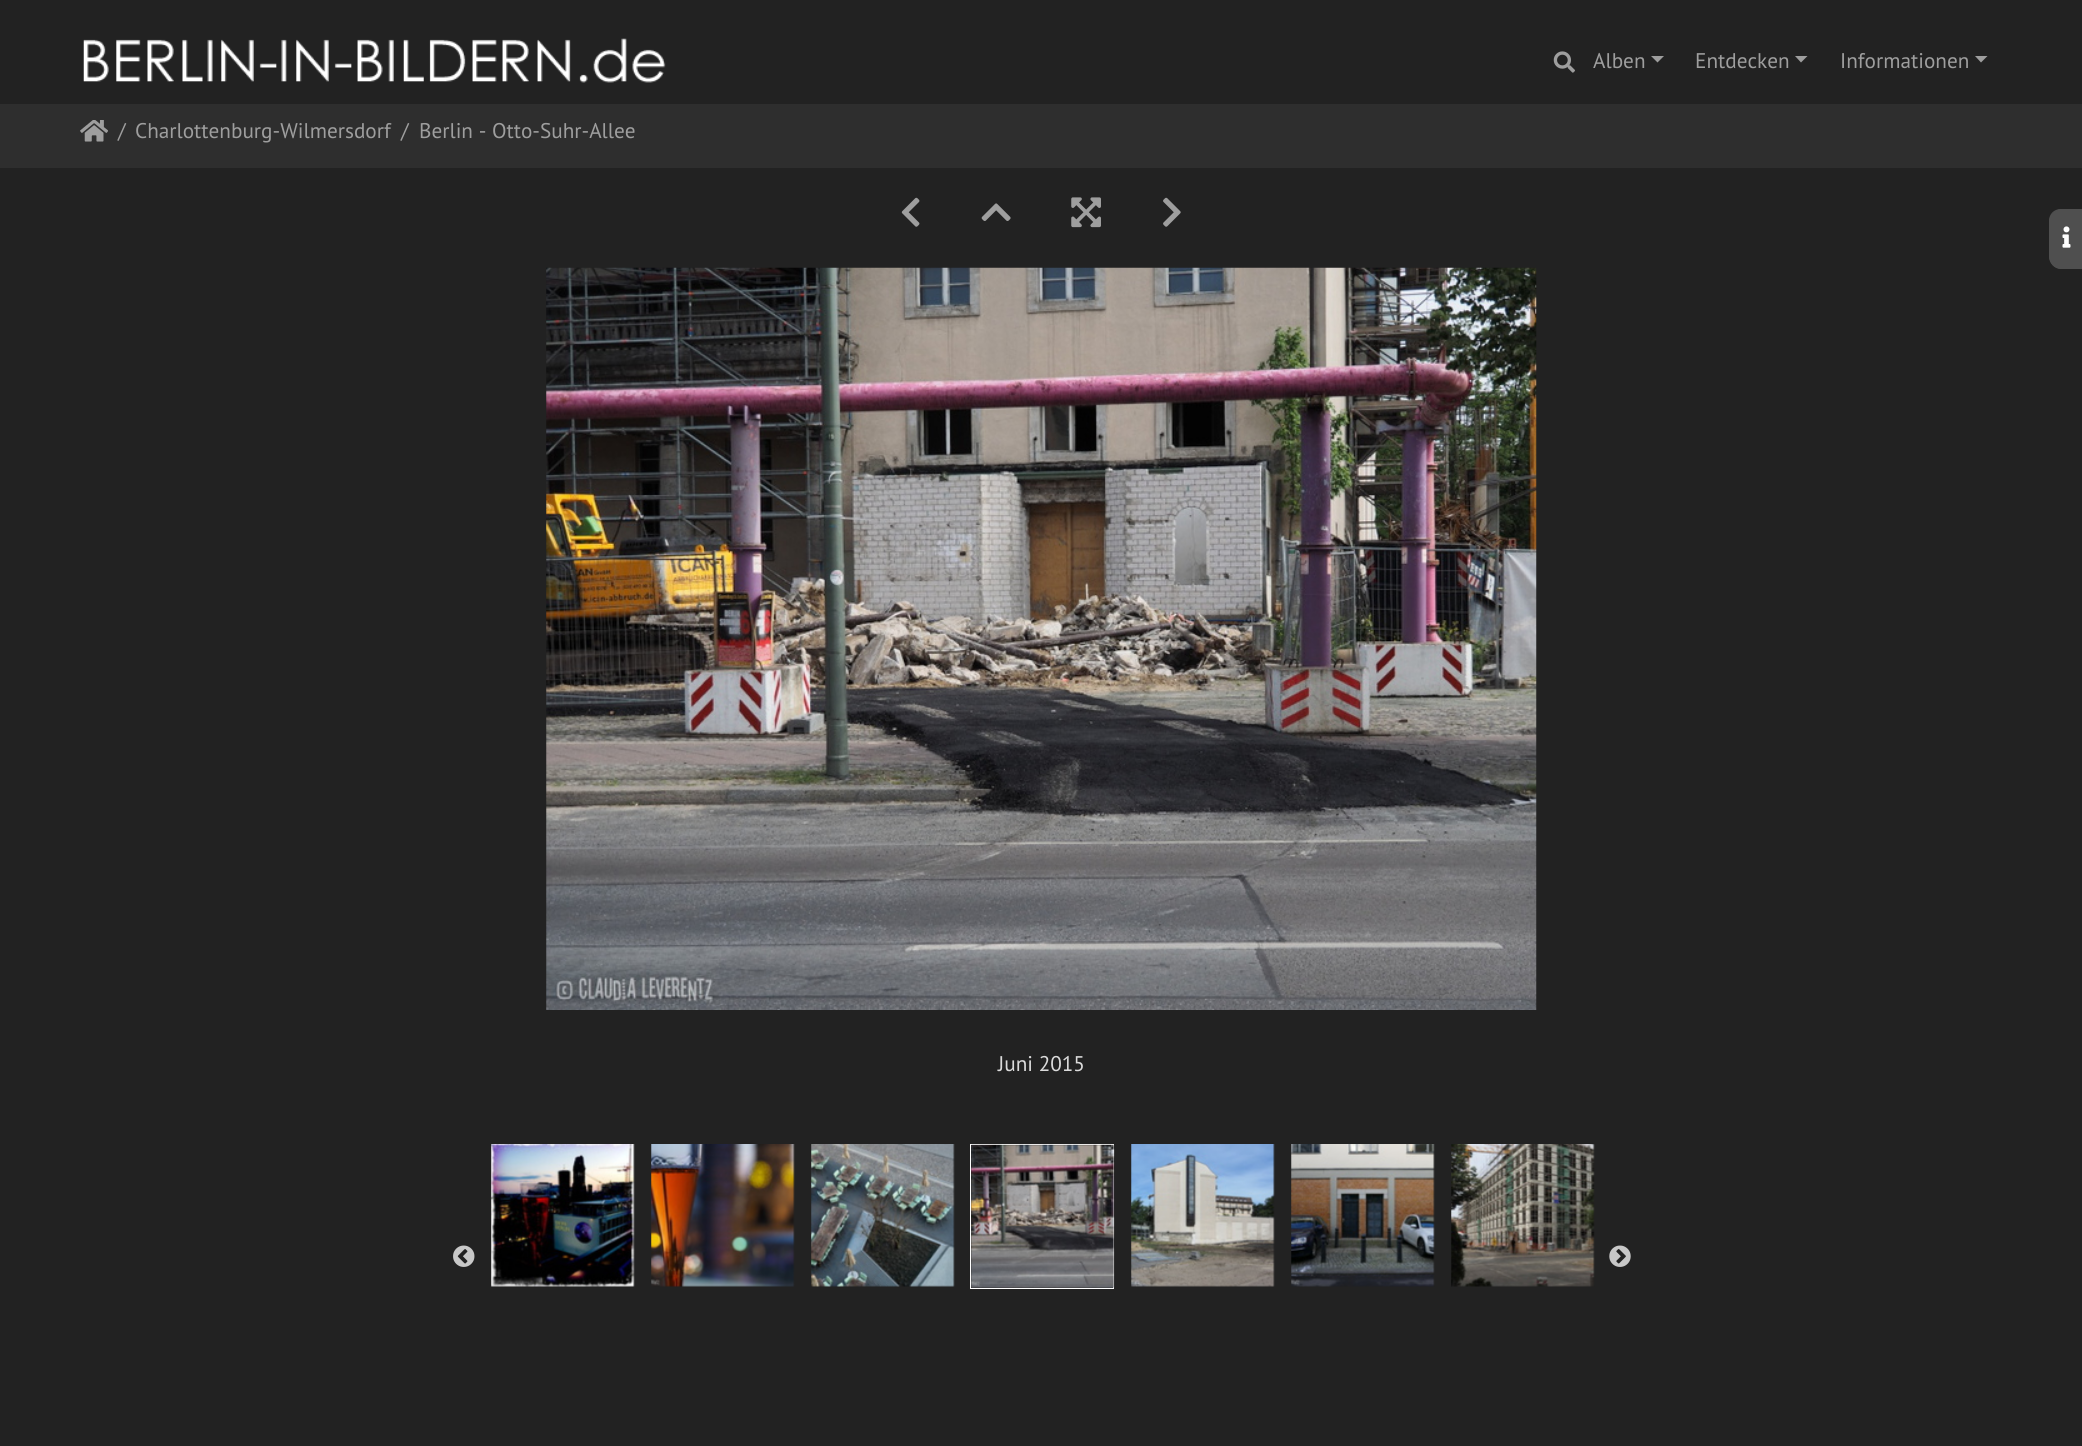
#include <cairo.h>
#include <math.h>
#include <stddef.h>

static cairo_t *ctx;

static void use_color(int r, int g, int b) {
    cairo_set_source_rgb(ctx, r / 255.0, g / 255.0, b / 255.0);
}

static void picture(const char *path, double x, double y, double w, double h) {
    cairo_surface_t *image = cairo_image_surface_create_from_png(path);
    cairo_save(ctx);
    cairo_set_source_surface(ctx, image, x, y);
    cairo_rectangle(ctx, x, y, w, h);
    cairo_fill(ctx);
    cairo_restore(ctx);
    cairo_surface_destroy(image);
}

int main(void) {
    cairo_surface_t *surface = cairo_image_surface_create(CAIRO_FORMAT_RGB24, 2082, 1446);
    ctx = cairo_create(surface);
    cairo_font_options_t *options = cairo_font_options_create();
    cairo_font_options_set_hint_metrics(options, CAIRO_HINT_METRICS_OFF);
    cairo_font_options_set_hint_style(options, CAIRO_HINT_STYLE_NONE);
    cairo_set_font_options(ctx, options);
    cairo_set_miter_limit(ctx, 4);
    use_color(34, 34, 34);
    cairo_paint(ctx);
    picture("img1.png", 83, 38, 583, 45);
    picture("img2.png", 1553, 51, 22, 22);
    cairo_select_font_face(ctx, "PT Sans", CAIRO_FONT_SLANT_NORMAL, CAIRO_FONT_WEIGHT_NORMAL);
    cairo_set_font_size(ctx, 21.25);
    use_color(158, 158, 158);
    cairo_move_to(ctx, 1593, 68);
    cairo_show_text(ctx, "Alben");
    cairo_new_path(ctx);
    cairo_move_to(ctx, 1651, 56);
    cairo_line_to(ctx, 1664, 56);
    cairo_line_to(ctx, 1657.5, 62.5);
    cairo_close_path(ctx);
    cairo_fill(ctx);
    cairo_move_to(ctx, 1695, 68);
    cairo_show_text(ctx, "Entdecken");
    cairo_new_path(ctx);
    cairo_move_to(ctx, 1795, 56);
    cairo_line_to(ctx, 1807.5, 56);
    cairo_line_to(ctx, 1801, 62.5);
    cairo_close_path(ctx);
    cairo_fill(ctx);
    cairo_move_to(ctx, 1840, 68);
    cairo_show_text(ctx, "Informationen");
    cairo_new_path(ctx);
    cairo_move_to(ctx, 1975, 56);
    cairo_line_to(ctx, 1987.5, 56);
    cairo_line_to(ctx, 1981, 62.5);
    cairo_close_path(ctx);
    cairo_fill(ctx);
    use_color(46, 46, 46);
    cairo_rectangle(ctx, 0, 104, 2082, 64);
    cairo_fill(ctx);
    picture("img3.png", 80, 120, 28, 22);
    use_color(158, 158, 158);
    cairo_move_to(ctx, 118, 138);
    cairo_show_text(ctx, "/");
    cairo_move_to(ctx, 135, 138);
    cairo_show_text(ctx, "Charlottenburg-Wilmersdorf");
    cairo_move_to(ctx, 401, 138);
    cairo_show_text(ctx, "/");
    cairo_move_to(ctx, 419, 138);
    cairo_show_text(ctx, "Berlin - Otto-Suhr-Allee");
    picture("img4.png", 901, 197, 19, 30);
    picture("img5.png", 981, 203, 30, 18);
    picture("img6.png", 1071, 197, 30, 31);
    picture("img7.png", 1163, 197, 18, 30);
    use_color(79, 79, 79);
    cairo_new_path(ctx);
    cairo_move_to(ctx, 2062, 209);
    cairo_line_to(ctx, 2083, 209);
    cairo_line_to(ctx, 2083, 269);
    cairo_line_to(ctx, 2062, 269);
    cairo_curve_to(ctx, 2055, 269, 2049, 263, 2049, 256);
    cairo_line_to(ctx, 2049, 222);
    cairo_curve_to(ctx, 2049, 215, 2055, 209, 2062, 209);
    cairo_close_path(ctx);
    cairo_fill(ctx);
    cairo_set_fill_rule(ctx, CAIRO_FILL_RULE_EVEN_ODD);
    cairo_new_path(ctx);
    cairo_move_to(ctx, 2061, 209);
    cairo_line_to(ctx, 2082, 209);
    cairo_line_to(ctx, 2082, 269);
    cairo_line_to(ctx, 2061, 269);
    cairo_curve_to(ctx, 2054, 269, 2049, 263, 2049, 256);
    cairo_line_to(ctx, 2049, 221);
    cairo_curve_to(ctx, 2049, 214, 2054, 209, 2061, 209);
    cairo_close_path(ctx);
    cairo_move_to(ctx, 2061, 210);
    cairo_line_to(ctx, 2082, 210);
    cairo_line_to(ctx, 2082, 268);
    cairo_line_to(ctx, 2061, 268);
    cairo_curve_to(ctx, 2055, 268, 2050, 262, 2050, 256);
    cairo_line_to(ctx, 2050, 221);
    cairo_curve_to(ctx, 2050, 215, 2055, 210, 2061, 210);
    cairo_close_path(ctx);
    cairo_fill(ctx);
    picture("img8.png", 2062, 226, 9, 22);
    picture("img9.png", 546, 267, 991, 743);
    use_color(219, 219, 219);
    cairo_move_to(ctx, 998, 1071);
    cairo_show_text(ctx, "Juni 2015");
    picture("img10.png", 453, 1245, 22, 22);
    picture("img11.png", 491, 1144, 144, 143);
    picture("img12.png", 651, 1144, 144, 143);
    picture("img13.png", 811, 1144, 144, 143);
    cairo_rectangle(ctx, 970.5, 1144.5, 143, 144);
    use_color(255, 255, 255);
    cairo_set_line_width(ctx, 1);
    cairo_stroke(ctx);
    picture("img14.png", 971, 1144, 144, 144);
    picture("img15.png", 1131, 1144, 144, 143);
    picture("img16.png", 1291, 1144, 144, 143);
    picture("img17.png", 1451, 1144, 144, 143);
    picture("img18.png", 1609, 1245, 22, 22);
    cairo_surface_write_to_png(surface, "result.png");
    cairo_font_options_destroy(options);
    cairo_destroy(ctx);
    cairo_surface_destroy(surface);
    return 0;
}
